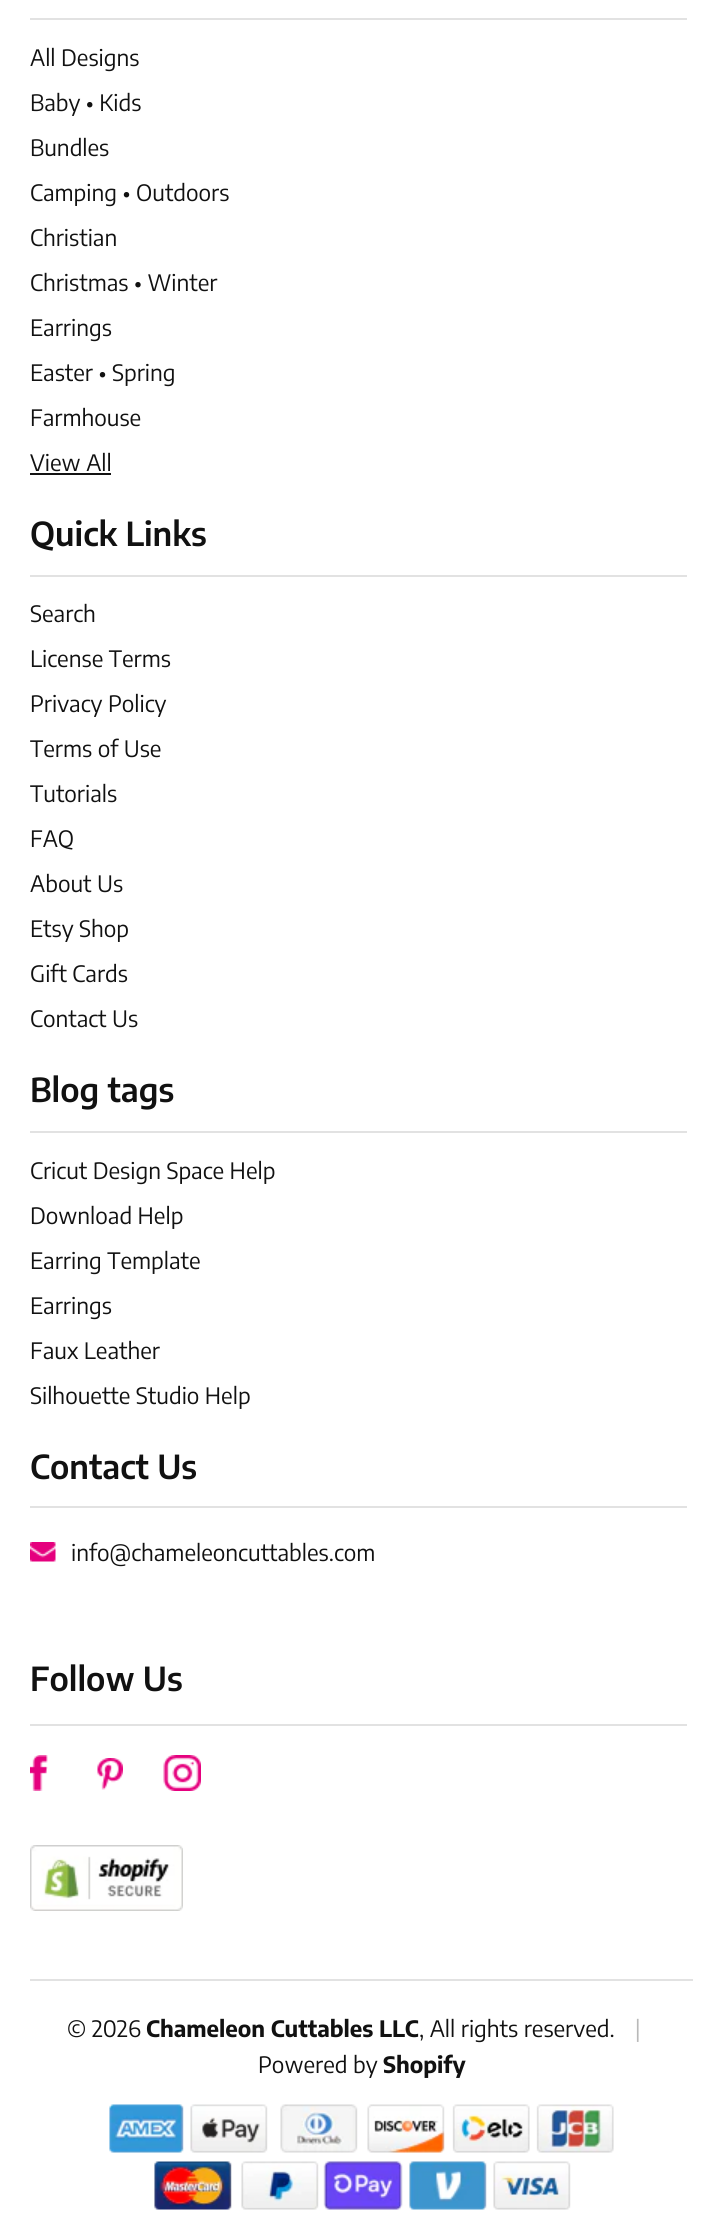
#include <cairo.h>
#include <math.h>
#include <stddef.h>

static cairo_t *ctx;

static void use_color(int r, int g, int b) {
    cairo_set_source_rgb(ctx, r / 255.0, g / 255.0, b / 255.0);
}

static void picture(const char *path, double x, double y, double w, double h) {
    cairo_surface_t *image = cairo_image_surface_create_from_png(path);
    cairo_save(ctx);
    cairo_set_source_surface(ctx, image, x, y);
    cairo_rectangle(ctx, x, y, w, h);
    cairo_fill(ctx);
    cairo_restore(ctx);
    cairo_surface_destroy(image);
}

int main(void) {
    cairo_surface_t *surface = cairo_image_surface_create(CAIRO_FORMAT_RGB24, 723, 2239);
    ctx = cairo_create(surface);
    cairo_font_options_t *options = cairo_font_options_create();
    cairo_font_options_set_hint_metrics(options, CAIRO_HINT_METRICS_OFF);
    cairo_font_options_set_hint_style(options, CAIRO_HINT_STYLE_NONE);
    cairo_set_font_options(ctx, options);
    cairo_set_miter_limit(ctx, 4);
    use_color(255, 255, 255);
    cairo_paint(ctx);
    use_color(226, 226, 226);
    cairo_rectangle(ctx, 30, 18, 657, 2);
    cairo_fill(ctx);
    cairo_select_font_face(ctx, "Encode Sans Condensed", CAIRO_FONT_SLANT_NORMAL, CAIRO_FONT_WEIGHT_NORMAL);
    cairo_set_font_size(ctx, 22.5);
    use_color(17, 17, 17);
    cairo_move_to(ctx, 30, 66);
    cairo_show_text(ctx, "All Designs");
    cairo_move_to(ctx, 30, 111);
    cairo_show_text(ctx, "Baby • Kids");
    cairo_move_to(ctx, 30, 156);
    cairo_show_text(ctx, "Bundles");
    cairo_move_to(ctx, 30, 201);
    cairo_show_text(ctx, "Camping • Outdoors");
    cairo_move_to(ctx, 30, 246);
    cairo_show_text(ctx, "Christian");
    cairo_move_to(ctx, 30, 291);
    cairo_show_text(ctx, "Christmas • Winter");
    cairo_move_to(ctx, 30, 336);
    cairo_show_text(ctx, "Earrings");
    cairo_move_to(ctx, 30, 381);
    cairo_show_text(ctx, "Easter • Spring");
    cairo_move_to(ctx, 30, 426);
    cairo_show_text(ctx, "Farmhouse");
    cairo_move_to(ctx, 30, 471);
    cairo_show_text(ctx, "View All");
    use_color(19, 19, 19);
    cairo_rectangle(ctx, 30, 473, 81, 2);
    cairo_fill(ctx);
    use_color(226, 226, 226);
    cairo_rectangle(ctx, 30, 575, 657, 2);
    cairo_fill(ctx);
    cairo_select_font_face(ctx, "Encode Sans Condensed SemiBold", CAIRO_FONT_SLANT_NORMAL, CAIRO_FONT_WEIGHT_NORMAL);
    cairo_set_font_size(ctx, 33);
    use_color(17, 17, 17);
    cairo_move_to(ctx, 30, 546);
    cairo_show_text(ctx, "Quick Links");
    cairo_select_font_face(ctx, "Encode Sans Condensed", CAIRO_FONT_SLANT_NORMAL, CAIRO_FONT_WEIGHT_NORMAL);
    cairo_set_font_size(ctx, 22.5);
    cairo_move_to(ctx, 30, 622);
    cairo_show_text(ctx, "Search");
    cairo_move_to(ctx, 30, 667);
    cairo_show_text(ctx, "License Terms");
    cairo_move_to(ctx, 30, 712);
    cairo_show_text(ctx, "Privacy Policy");
    cairo_move_to(ctx, 30, 757);
    cairo_show_text(ctx, "Terms of Use");
    cairo_move_to(ctx, 30, 802);
    cairo_show_text(ctx, "Tutorials");
    cairo_move_to(ctx, 30, 847);
    cairo_show_text(ctx, "FAQ");
    cairo_move_to(ctx, 30, 892);
    cairo_show_text(ctx, "About Us");
    cairo_move_to(ctx, 30, 937);
    cairo_show_text(ctx, "Etsy Shop");
    cairo_move_to(ctx, 30, 982);
    cairo_show_text(ctx, "Gift Cards");
    cairo_move_to(ctx, 30, 1027);
    cairo_show_text(ctx, "Contact Us");
    use_color(226, 226, 226);
    cairo_rectangle(ctx, 30, 1131, 657, 2);
    cairo_fill(ctx);
    cairo_select_font_face(ctx, "Encode Sans Condensed SemiBold", CAIRO_FONT_SLANT_NORMAL, CAIRO_FONT_WEIGHT_NORMAL);
    cairo_set_font_size(ctx, 33);
    use_color(17, 17, 17);
    cairo_move_to(ctx, 30, 1102);
    cairo_show_text(ctx, "Blog tags");
    cairo_select_font_face(ctx, "Encode Sans Condensed", CAIRO_FONT_SLANT_NORMAL, CAIRO_FONT_WEIGHT_NORMAL);
    cairo_set_font_size(ctx, 22.5);
    cairo_move_to(ctx, 30, 1179);
    cairo_show_text(ctx, "Cricut Design Space Help");
    cairo_move_to(ctx, 30, 1224);
    cairo_show_text(ctx, "Download Help");
    cairo_move_to(ctx, 30, 1269);
    cairo_show_text(ctx, "Earring Template");
    cairo_move_to(ctx, 30, 1314);
    cairo_show_text(ctx, "Earrings");
    cairo_move_to(ctx, 30, 1359);
    cairo_show_text(ctx, "Faux Leather");
    cairo_move_to(ctx, 30, 1404);
    cairo_show_text(ctx, "Silhouette Studio Help");
    use_color(226, 226, 226);
    cairo_rectangle(ctx, 30, 1506, 657, 2);
    cairo_fill(ctx);
    cairo_select_font_face(ctx, "Encode Sans Condensed SemiBold", CAIRO_FONT_SLANT_NORMAL, CAIRO_FONT_WEIGHT_NORMAL);
    cairo_set_font_size(ctx, 33);
    use_color(17, 17, 17);
    cairo_move_to(ctx, 30, 1479);
    cairo_show_text(ctx, "Contact Us");
    picture("img1.png", 30, 1542, 26, 20);
    cairo_select_font_face(ctx, "Encode Sans Condensed", CAIRO_FONT_SLANT_NORMAL, CAIRO_FONT_WEIGHT_NORMAL);
    cairo_set_font_size(ctx, 22.5);
    cairo_move_to(ctx, 71, 1561);
    cairo_show_text(ctx, "info@chameleoncuttables.com");
    use_color(226, 226, 226);
    cairo_rectangle(ctx, 30, 1724, 657, 2);
    cairo_fill(ctx);
    cairo_select_font_face(ctx, "Encode Sans Condensed SemiBold", CAIRO_FONT_SLANT_NORMAL, CAIRO_FONT_WEIGHT_NORMAL);
    cairo_set_font_size(ctx, 33);
    use_color(17, 17, 17);
    cairo_move_to(ctx, 30, 1691);
    cairo_show_text(ctx, "Follow Us");
    picture("img2.png", 30, 1755, 18, 36);
    picture("img3.png", 97, 1758, 26, 32);
    picture("img4.png", 163, 1755, 38, 36);
    picture("img5.png", 30, 1845, 153, 66);
    use_color(226, 226, 226);
    cairo_rectangle(ctx, 30, 1979, 663, 2);
    cairo_fill(ctx);
    cairo_select_font_face(ctx, "Encode Sans Condensed", CAIRO_FONT_SLANT_NORMAL, CAIRO_FONT_WEIGHT_NORMAL);
    cairo_set_font_size(ctx, 22.5);
    use_color(17, 17, 17);
    cairo_move_to(ctx, 67, 2037);
    cairo_show_text(ctx, "© 2026");
    cairo_select_font_face(ctx, "Encode Sans Condensed", CAIRO_FONT_SLANT_NORMAL, CAIRO_FONT_WEIGHT_BOLD);
    cairo_move_to(ctx, 146, 2037);
    cairo_show_text(ctx, "Chameleon Cuttables LLC");
    cairo_select_font_face(ctx, "Encode Sans Condensed", CAIRO_FONT_SLANT_NORMAL, CAIRO_FONT_WEIGHT_NORMAL);
    cairo_move_to(ctx, 419, 2037);
    cairo_show_text(ctx, ", All rights reserved.");
    use_color(185, 185, 185);
    cairo_move_to(ctx, 635, 2037);
    cairo_show_text(ctx, "|");
    use_color(17, 17, 17);
    cairo_move_to(ctx, 258, 2073);
    cairo_show_text(ctx, "Powered by");
    cairo_select_font_face(ctx, "Encode Sans Condensed", CAIRO_FONT_SLANT_NORMAL, CAIRO_FONT_WEIGHT_BOLD);
    cairo_move_to(ctx, 383, 2073);
    cairo_show_text(ctx, "Shopify");
    picture("img6.png", 109, 2104, 505, 106);
    cairo_surface_write_to_png(surface, "result.png");
    cairo_font_options_destroy(options);
    cairo_destroy(ctx);
    cairo_surface_destroy(surface);
    return 0;
}
